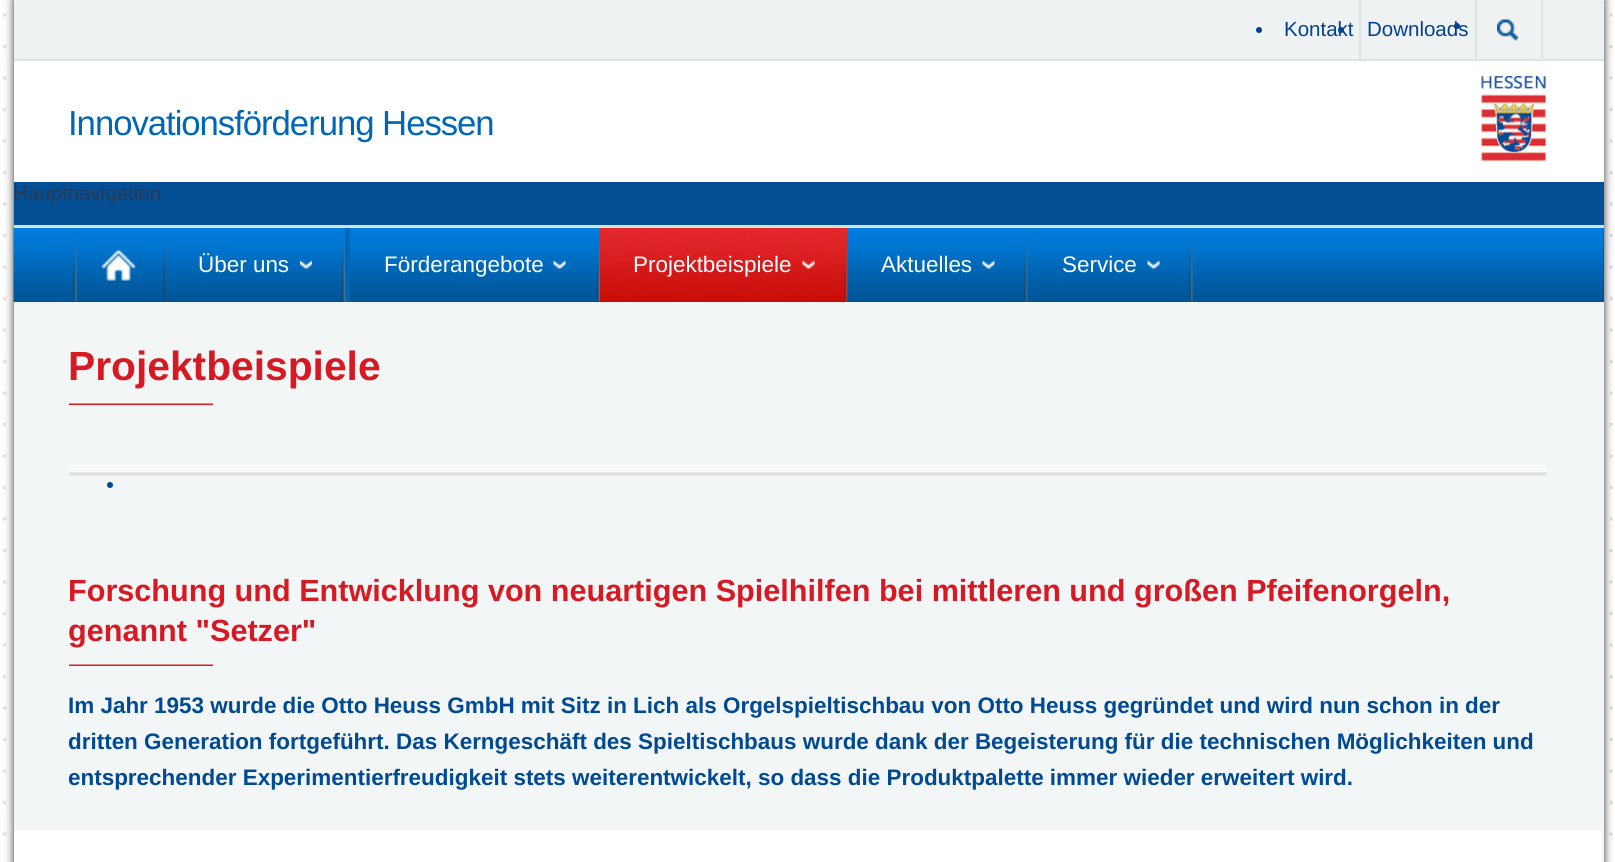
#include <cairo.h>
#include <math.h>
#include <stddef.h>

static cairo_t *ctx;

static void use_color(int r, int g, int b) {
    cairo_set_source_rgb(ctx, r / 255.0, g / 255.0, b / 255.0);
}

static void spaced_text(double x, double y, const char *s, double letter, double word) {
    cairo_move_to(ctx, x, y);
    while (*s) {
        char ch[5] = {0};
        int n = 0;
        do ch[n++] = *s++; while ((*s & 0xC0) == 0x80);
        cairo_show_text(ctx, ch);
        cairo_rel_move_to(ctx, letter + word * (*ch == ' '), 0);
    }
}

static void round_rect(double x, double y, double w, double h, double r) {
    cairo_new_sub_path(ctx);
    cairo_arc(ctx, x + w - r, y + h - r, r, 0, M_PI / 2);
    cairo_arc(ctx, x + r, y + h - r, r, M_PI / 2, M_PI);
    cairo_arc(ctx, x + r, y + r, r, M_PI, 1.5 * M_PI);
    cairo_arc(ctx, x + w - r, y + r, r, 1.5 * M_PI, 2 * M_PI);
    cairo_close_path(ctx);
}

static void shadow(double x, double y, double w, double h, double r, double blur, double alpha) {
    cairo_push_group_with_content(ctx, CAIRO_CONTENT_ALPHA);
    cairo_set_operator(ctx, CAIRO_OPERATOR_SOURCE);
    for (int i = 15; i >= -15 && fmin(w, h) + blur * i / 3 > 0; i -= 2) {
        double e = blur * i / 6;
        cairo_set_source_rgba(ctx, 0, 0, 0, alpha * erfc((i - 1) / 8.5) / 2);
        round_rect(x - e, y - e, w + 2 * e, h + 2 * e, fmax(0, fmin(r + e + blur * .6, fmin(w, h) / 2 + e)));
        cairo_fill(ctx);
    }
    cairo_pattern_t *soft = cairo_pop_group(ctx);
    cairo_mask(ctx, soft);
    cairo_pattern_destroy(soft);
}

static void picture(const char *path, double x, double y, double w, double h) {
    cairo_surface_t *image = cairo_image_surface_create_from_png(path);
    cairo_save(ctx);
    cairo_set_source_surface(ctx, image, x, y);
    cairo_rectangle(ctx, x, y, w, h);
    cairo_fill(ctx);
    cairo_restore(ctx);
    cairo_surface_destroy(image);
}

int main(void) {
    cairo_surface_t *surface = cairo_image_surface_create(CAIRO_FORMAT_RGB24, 1615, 862);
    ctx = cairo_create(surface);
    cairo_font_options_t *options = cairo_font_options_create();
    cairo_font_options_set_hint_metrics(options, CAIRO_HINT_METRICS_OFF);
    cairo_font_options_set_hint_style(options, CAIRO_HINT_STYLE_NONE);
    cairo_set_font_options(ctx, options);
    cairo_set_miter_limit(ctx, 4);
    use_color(255, 255, 255);
    cairo_paint(ctx);
    picture("img1.png", 2, 13, 1611, 823);
    use_color(51, 51, 51);
    shadow(14, 0, 1590, 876, 0, 4.5, 1);
    use_color(255, 255, 255);
    cairo_rectangle(ctx, 14, 61, 1590, 121);
    cairo_fill(ctx);
    use_color(239, 242, 242);
    cairo_rectangle(ctx, 14, 0, 1590, 59);
    cairo_fill(ctx);
    use_color(218, 230, 230);
    cairo_rectangle(ctx, 14, 59, 1590, 2);
    cairo_fill(ctx);
    cairo_rectangle(ctx, 1359, 0, 2, 59);
    cairo_fill(ctx);
    use_color(0, 65, 142);
    cairo_arc(ctx, 1259, 30, 3, 0, 2 * M_PI);
    cairo_fill(ctx);
    cairo_select_font_face(ctx, "Liberation Sans", CAIRO_FONT_SLANT_NORMAL, CAIRO_FONT_WEIGHT_NORMAL);
    cairo_set_font_size(ctx, 20.5);
    cairo_move_to(ctx, 1284, 36);
    cairo_show_text(ctx, "Kontakt");
    use_color(218, 230, 230);
    cairo_rectangle(ctx, 1475, 0, 2, 59);
    cairo_fill(ctx);
    use_color(0, 65, 142);
    cairo_arc(ctx, 1341, 30, 3, 0, 2 * M_PI);
    cairo_fill(ctx);
    cairo_move_to(ctx, 1367, 36);
    cairo_show_text(ctx, "Downloads");
    use_color(218, 230, 230);
    cairo_rectangle(ctx, 1541, 0, 2, 60);
    cairo_fill(ctx);
    use_color(0, 65, 142);
    cairo_arc(ctx, 1457, 26, 3, 0, 2 * M_PI);
    cairo_fill(ctx);
    picture("img2.png", 1497, 19, 21, 22);
    cairo_set_font_size(ctx, 34.75);
    use_color(0, 103, 183);
    spaced_text(68, 135, "Innovationsförderung Hessen", -1.05, 0);
    picture("img3.png", 1480, 75, 67, 87);
    use_color(243, 246, 246);
    cairo_rectangle(ctx, 14, 302, 1590, 560);
    cairo_fill(ctx);
    use_color(4, 79, 150);
    cairo_rectangle(ctx, 14, 182, 1590, 120);
    cairo_fill(ctx);
    cairo_set_font_size(ctx, 20.5);
    use_color(39, 58, 79);
    cairo_move_to(ctx, 13, 200);
    cairo_show_text(ctx, "Hauptnavigation");
    picture("img4.png", 13, 228, 1591, 74);
    use_color(211, 225, 225);
    cairo_rectangle(ctx, 14, 225, 1590, 3);
    cairo_fill(ctx);
    picture("img5.png", 73, 234, 92, 68);
    picture("img6.png", 341, 234, 4, 68);
    picture("img7.png", 300, 260, 12, 9);
    cairo_set_font_size(ctx, 22.45);
    use_color(255, 255, 255);
    cairo_move_to(ctx, 198, 272);
    cairo_show_text(ctx, "Über uns");
    picture("img8.png", 596, 234, 4, 68);
    use_color(0, 103, 183);
    cairo_rectangle(ctx, 345, 228, 5, 74);
    cairo_fill(ctx);
    picture("img9.png", 553, 260, 13, 9);
    use_color(255, 255, 255);
    cairo_move_to(ctx, 384, 272);
    cairo_show_text(ctx, "Förderangebote");
    picture("img10.png", 600, 228, 248, 74);
    picture("img11.png", 802, 260, 13, 9);
    cairo_move_to(ctx, 633, 272);
    cairo_show_text(ctx, "Projektbeispiele");
    picture("img12.png", 847, 228, 181, 74);
    picture("img13.png", 982, 260, 13, 9);
    cairo_move_to(ctx, 881, 272);
    cairo_show_text(ctx, "Aktuelles");
    picture("img14.png", 1027, 234, 166, 68);
    picture("img9.png", 1147, 260, 13, 9);
    cairo_move_to(ctx, 1062, 272);
    cairo_show_text(ctx, "Service");
    picture("img15.png", 69, 403, 144, 2);
    cairo_select_font_face(ctx, "Liberation Sans", CAIRO_FONT_SLANT_NORMAL, CAIRO_FONT_WEIGHT_BOLD);
    cairo_set_font_size(ctx, 40.75);
    use_color(214, 25, 35);
    cairo_move_to(ctx, 68, 380);
    cairo_show_text(ctx, "Projektbeispiele");
    picture("img16.png", 69, 465, 1478, 11);
    use_color(0, 74, 147);
    cairo_arc(ctx, 110, 485, 3, 0, 2 * M_PI);
    cairo_fill(ctx);
    picture("img15.png", 69, 664, 144, 2);
    cairo_set_font_size(ctx, 30.6);
    use_color(214, 25, 35);
    cairo_move_to(ctx, 68, 601);
    cairo_show_text(ctx, "Forschung und Entwicklung von neuartigen Spielhilfen bei mittleren und großen Pfeifenorgeln,");
    cairo_move_to(ctx, 68, 641);
    cairo_show_text(ctx, "genannt \"Setzer\"");
    cairo_set_font_size(ctx, 22.45);
    use_color(0, 74, 147);
    cairo_move_to(ctx, 68, 713);
    cairo_show_text(ctx, "Im Jahr 1953 wurde die Otto Heuss GmbH mit Sitz in Lich als Orgelspieltischbau von Otto Heuss gegründet und wird nun schon in der");
    cairo_move_to(ctx, 68, 749);
    cairo_show_text(ctx, "dritten Generation fortgeführt. Das Kerngeschäft des Spieltischbaus wurde dank der Begeisterung für die technischen Möglichkeiten und");
    cairo_move_to(ctx, 68, 785);
    cairo_show_text(ctx, "entsprechender Experimentierfreudigkeit stets weiterentwickelt, so dass die Produktpalette immer wieder erweitert wird.");
    use_color(255, 255, 255);
    cairo_rectangle(ctx, 14, 830, 1588, 32);
    cairo_fill(ctx);
    cairo_surface_write_to_png(surface, "result.png");
    cairo_font_options_destroy(options);
    cairo_destroy(ctx);
    cairo_surface_destroy(surface);
    return 0;
}
